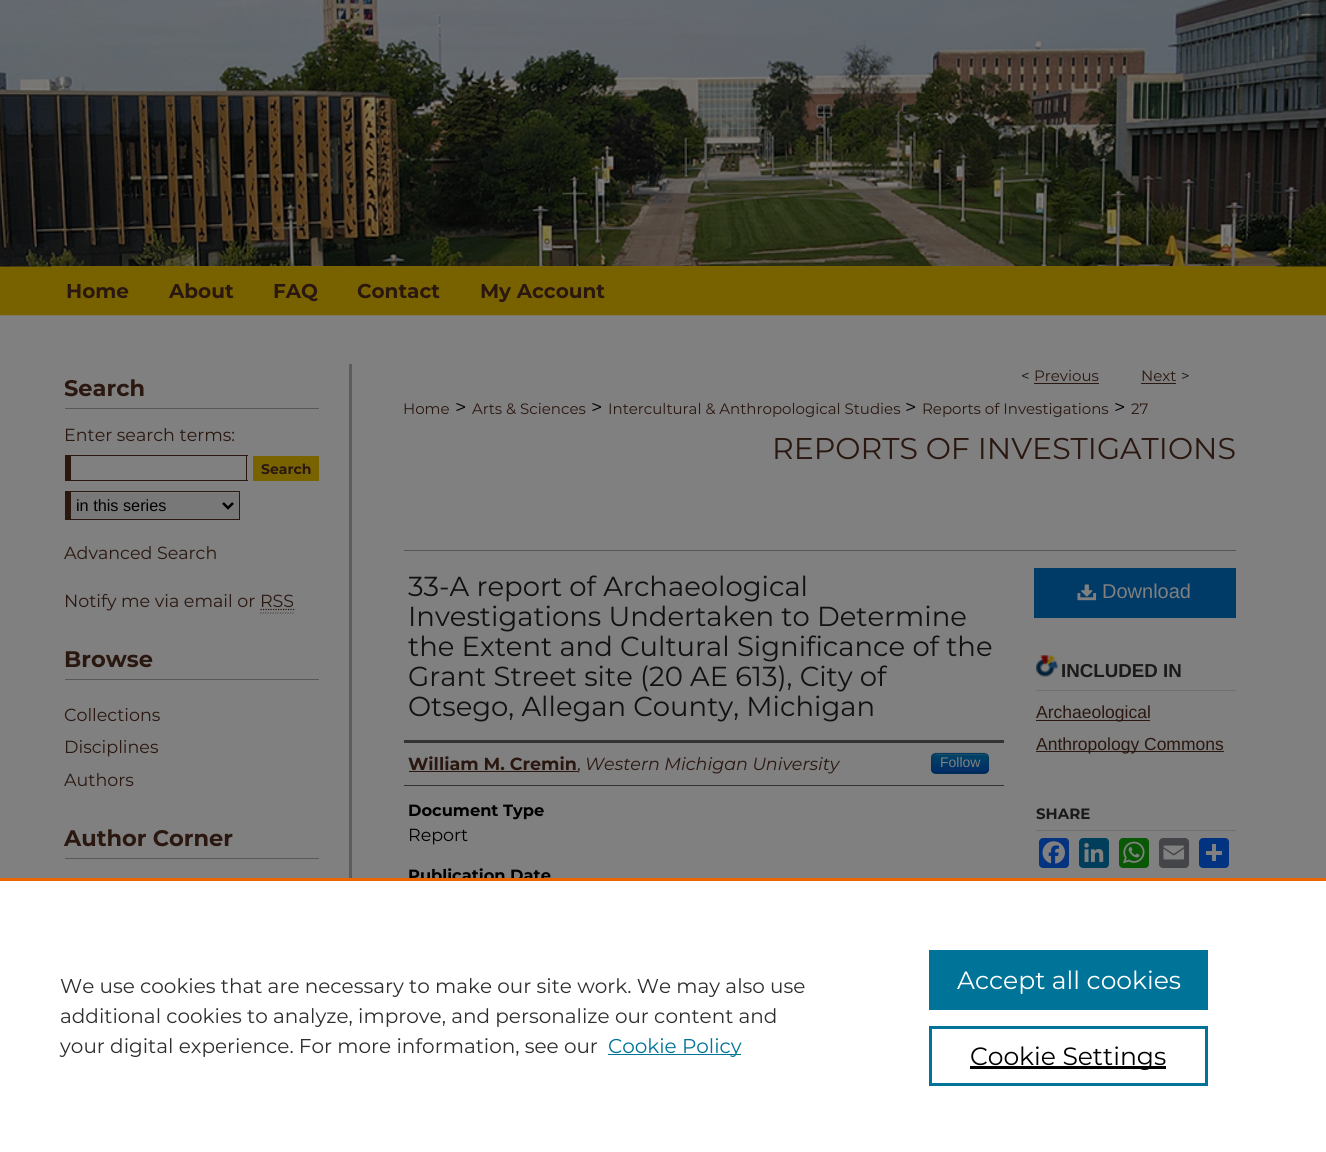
#include <cairo.h>
#include <math.h>
#include <stddef.h>

static cairo_t *ctx;

static void use_color(int r, int g, int b) {
    cairo_set_source_rgb(ctx, r / 255.0, g / 255.0, b / 255.0);
}

static void round_rect(double x, double y, double w, double h, double r) {
    cairo_new_sub_path(ctx);
    cairo_arc(ctx, x + w - r, y + h - r, r, 0, M_PI / 2);
    cairo_arc(ctx, x + r, y + h - r, r, M_PI / 2, M_PI);
    cairo_arc(ctx, x + r, y + r, r, M_PI, 1.5 * M_PI);
    cairo_arc(ctx, x + w - r, y + r, r, 1.5 * M_PI, 2 * M_PI);
    cairo_close_path(ctx);
}

static void picture(const char *path, double x, double y, double w, double h) {
    cairo_surface_t *image = cairo_image_surface_create_from_png(path);
    cairo_save(ctx);
    cairo_set_source_surface(ctx, image, x, y);
    cairo_rectangle(ctx, x, y, w, h);
    cairo_fill(ctx);
    cairo_restore(ctx);
    cairo_surface_destroy(image);
}

int main(void) {
    cairo_surface_t *surface = cairo_image_surface_create(CAIRO_FORMAT_RGB24, 1326, 1152);
    ctx = cairo_create(surface);
    cairo_font_options_t *options = cairo_font_options_create();
    cairo_font_options_set_hint_metrics(options, CAIRO_HINT_METRICS_OFF);
    cairo_font_options_set_hint_style(options, CAIRO_HINT_STYLE_NONE);
    cairo_set_font_options(ctx, options);
    cairo_set_miter_limit(ctx, 4);
    cairo_pattern_t *gradient;
    use_color(128, 128, 128);
    cairo_paint(ctx);
    picture("img1.png", 0, 0, 1326, 316);
    use_color(121, 99, 0);
    cairo_rectangle(ctx, 51, 266, 1225, 1);
    cairo_fill(ctx);
    cairo_select_font_face(ctx, "Montserrat", CAIRO_FONT_SLANT_NORMAL, CAIRO_FONT_WEIGHT_BOLD);
    cairo_set_font_size(ctx, 20);
    use_color(42, 23, 16);
    cairo_move_to(ctx, 66, 298);
    cairo_show_text(ctx, "Home");
    cairo_move_to(ctx, 169, 298);
    cairo_show_text(ctx, "About");
    cairo_move_to(ctx, 273, 298);
    cairo_show_text(ctx, "FAQ");
    cairo_move_to(ctx, 357, 298);
    cairo_show_text(ctx, "Contact");
    cairo_move_to(ctx, 480, 298);
    cairo_show_text(ctx, "My Account");
    use_color(94, 91, 88);
    cairo_rectangle(ctx, 349, 364, 3, 514);
    cairo_fill(ctx);
    use_color(90, 87, 84);
    cairo_rectangle(ctx, 65, 408, 254, 1);
    cairo_fill(ctx);
    cairo_set_font_size(ctx, 22.5);
    use_color(42, 23, 16);
    cairo_move_to(ctx, 64, 396);
    cairo_show_text(ctx, "Search");
    cairo_select_font_face(ctx, "Montserrat", CAIRO_FONT_SLANT_NORMAL, CAIRO_FONT_WEIGHT_NORMAL);
    cairo_set_font_size(ctx, 17.5);
    cairo_move_to(ctx, 64, 441);
    cairo_show_text(ctx, "Enter search terms:");
    cairo_rectangle(ctx, 65, 455, 183, 1);
    cairo_fill(ctx);
    cairo_rectangle(ctx, 246, 455, 1, 26);
    cairo_fill(ctx);
    cairo_rectangle(ctx, 65, 480, 183, 1);
    cairo_fill(ctx);
    cairo_rectangle(ctx, 65, 455, 6, 26);
    cairo_fill(ctx);
    use_color(121, 99, 1);
    cairo_rectangle(ctx, 253, 456, 66, 25);
    cairo_fill(ctx);
    cairo_select_font_face(ctx, "Montserrat", CAIRO_FONT_SLANT_NORMAL, CAIRO_FONT_WEIGHT_BOLD);
    cairo_set_font_size(ctx, 14);
    use_color(42, 23, 16);
    cairo_move_to(ctx, 261, 474);
    cairo_show_text(ctx, "Search");
    use_color(120, 120, 120);
    cairo_rectangle(ctx, 71, 493, 168, 26);
    cairo_fill(ctx);
    use_color(42, 23, 16);
    cairo_rectangle(ctx, 65, 491, 175, 1);
    cairo_fill(ctx);
    cairo_rectangle(ctx, 239, 491, 1, 29);
    cairo_fill(ctx);
    cairo_rectangle(ctx, 65, 519, 175, 1);
    cairo_fill(ctx);
    cairo_rectangle(ctx, 65, 491, 6, 29);
    cairo_fill(ctx);
    cairo_new_path(ctx);
    cairo_move_to(ctx, 223, 503);
    cairo_line_to(ctx, 228, 508);
    cairo_line_to(ctx, 233, 503);
    use_color(0, 0, 0);
    cairo_set_line_width(ctx, 2.5);
    cairo_stroke(ctx);
    cairo_select_font_face(ctx, "Liberation Sans", CAIRO_FONT_SLANT_NORMAL, CAIRO_FONT_WEIGHT_NORMAL);
    cairo_set_font_size(ctx, 16.25);
    cairo_move_to(ctx, 76, 511);
    cairo_show_text(ctx, "in this series");
    cairo_select_font_face(ctx, "Montserrat", CAIRO_FONT_SLANT_NORMAL, CAIRO_FONT_WEIGHT_NORMAL);
    cairo_set_font_size(ctx, 17.5);
    use_color(42, 23, 16);
    cairo_move_to(ctx, 64, 559);
    cairo_show_text(ctx, "Advanced Search");
    cairo_move_to(ctx, 64, 607);
    cairo_show_text(ctx, "Notify me via email or RSS");
    cairo_new_path(ctx);
    cairo_move_to(ctx, 260.5, 609.5);
    cairo_line_to(ctx, 294.5, 609.5);
    cairo_set_line_width(ctx, 1.2);
    cairo_set_dash(ctx, (double[]){1.25, 1.25}, 2, 0);
    cairo_stroke(ctx);
    cairo_new_path(ctx);
    cairo_move_to(ctx, 260, 613);
    cairo_line_to(ctx, 295, 613);
    use_color(77, 77, 77);
    cairo_stroke(ctx);
    use_color(90, 87, 84);
    cairo_rectangle(ctx, 65, 679, 254, 1);
    cairo_fill(ctx);
    cairo_select_font_face(ctx, "Montserrat", CAIRO_FONT_SLANT_NORMAL, CAIRO_FONT_WEIGHT_BOLD);
    cairo_set_font_size(ctx, 22.5);
    use_color(42, 23, 16);
    cairo_move_to(ctx, 64, 667);
    cairo_show_text(ctx, "Browse");
    cairo_select_font_face(ctx, "Montserrat", CAIRO_FONT_SLANT_NORMAL, CAIRO_FONT_WEIGHT_NORMAL);
    cairo_set_font_size(ctx, 17.5);
    cairo_move_to(ctx, 64, 721);
    cairo_show_text(ctx, "Collections");
    cairo_move_to(ctx, 64, 753);
    cairo_show_text(ctx, "Disciplines");
    cairo_move_to(ctx, 64, 786);
    cairo_show_text(ctx, "Authors");
    use_color(90, 87, 84);
    cairo_rectangle(ctx, 65, 858, 254, 1);
    cairo_fill(ctx);
    cairo_select_font_face(ctx, "Montserrat", CAIRO_FONT_SLANT_NORMAL, CAIRO_FONT_WEIGHT_BOLD);
    cairo_set_font_size(ctx, 22.5);
    use_color(42, 23, 16);
    cairo_move_to(ctx, 64, 846);
    cairo_show_text(ctx, "Author Corner");
    cairo_select_font_face(ctx, "Montserrat", CAIRO_FONT_SLANT_NORMAL, CAIRO_FONT_WEIGHT_NORMAL);
    cairo_set_font_size(ctx, 15);
    use_color(17, 17, 17);
    cairo_move_to(ctx, 1021, 381);
    cairo_show_text(ctx, "<");
    use_color(42, 23, 16);
    cairo_move_to(ctx, 1034, 381);
    cairo_show_text(ctx, "Previous");
    cairo_rectangle(ctx, 1034, 383, 65, 1);
    cairo_fill(ctx);
    cairo_move_to(ctx, 1141, 381);
    cairo_show_text(ctx, "Next");
    cairo_rectangle(ctx, 1141, 383, 35, 1);
    cairo_fill(ctx);
    use_color(17, 17, 17);
    cairo_move_to(ctx, 1181, 381);
    cairo_show_text(ctx, ">");
    use_color(42, 23, 16);
    cairo_move_to(ctx, 403, 414);
    cairo_show_text(ctx, "Home");
    cairo_set_font_size(ctx, 20);
    use_color(0, 0, 0);
    cairo_move_to(ctx, 455, 414);
    cairo_show_text(ctx, ">");
    cairo_set_font_size(ctx, 15);
    use_color(42, 23, 16);
    cairo_move_to(ctx, 472, 414);
    cairo_show_text(ctx, "Arts & Sciences");
    cairo_set_font_size(ctx, 20);
    use_color(0, 0, 0);
    cairo_move_to(ctx, 591, 414);
    cairo_show_text(ctx, ">");
    cairo_set_font_size(ctx, 15);
    use_color(42, 23, 16);
    cairo_move_to(ctx, 608, 414);
    cairo_show_text(ctx, "Intercultural & Anthropological Studies");
    cairo_set_font_size(ctx, 20);
    use_color(0, 0, 0);
    cairo_move_to(ctx, 905, 414);
    cairo_show_text(ctx, ">");
    cairo_set_font_size(ctx, 15);
    use_color(42, 23, 16);
    cairo_move_to(ctx, 922, 414);
    cairo_show_text(ctx, "Reports of Investigations");
    cairo_set_font_size(ctx, 20);
    use_color(0, 0, 0);
    cairo_move_to(ctx, 1114, 414);
    cairo_show_text(ctx, ">");
    cairo_set_font_size(ctx, 15);
    use_color(42, 23, 16);
    cairo_move_to(ctx, 1131, 414);
    cairo_show_text(ctx, "27");
    cairo_set_font_size(ctx, 30);
    cairo_move_to(ctx, 772, 459);
    cairo_show_text(ctx, "REPORTS OF INVESTIGATIONS");
    use_color(85, 85, 85);
    cairo_rectangle(ctx, 404, 550, 832, 1);
    cairo_fill(ctx);
    cairo_set_font_size(ctx, 27.5);
    use_color(17, 17, 17);
    cairo_move_to(ctx, 408, 596);
    cairo_show_text(ctx, "33-A report of Archaeological");
    cairo_move_to(ctx, 408, 626);
    cairo_show_text(ctx, "Investigations Undertaken to Determine");
    cairo_move_to(ctx, 408, 656);
    cairo_show_text(ctx, "the Extent and Cultural Significance of the");
    cairo_move_to(ctx, 408, 686);
    cairo_show_text(ctx, "Grant Street site (20 AE 613), City of");
    cairo_move_to(ctx, 408, 716);
    cairo_show_text(ctx, "Otsego, Allegan County, Michigan");
    use_color(51, 51, 51);
    cairo_rectangle(ctx, 404, 740, 600, 3);
    cairo_fill(ctx);
    cairo_rectangle(ctx, 404, 785, 600, 1);
    cairo_fill(ctx);
    cairo_select_font_face(ctx, "Montserrat", CAIRO_FONT_SLANT_NORMAL, CAIRO_FONT_WEIGHT_BOLD);
    cairo_set_font_size(ctx, 17.5);
    use_color(42, 23, 16);
    cairo_move_to(ctx, 408, 770);
    cairo_show_text(ctx, "William M. Cremin");
    cairo_rectangle(ctx, 409, 771, 169, 1);
    cairo_fill(ctx);
    cairo_select_font_face(ctx, "Montserrat", CAIRO_FONT_SLANT_NORMAL, CAIRO_FONT_WEIGHT_NORMAL);
    cairo_move_to(ctx, 577, 770);
    cairo_show_text(ctx, ",");
    cairo_select_font_face(ctx, "Montserrat", CAIRO_FONT_SLANT_ITALIC, CAIRO_FONT_WEIGHT_NORMAL);
    cairo_move_to(ctx, 585, 770);
    cairo_show_text(ctx, "Western Michigan University");
    use_color(0, 58, 102);
    round_rect(931, 753, 58, 21, 5);
    cairo_fill(ctx);
    cairo_save(ctx);
    round_rect(931, 753, 58, 21, 5);
    cairo_clip(ctx);
    gradient = cairo_pattern_create_linear(960, 754, 960, 773);
    cairo_pattern_add_color_stop_rgba(gradient, 0, 0, 0.267, 0.4, 1);
    cairo_pattern_add_color_stop_rgba(gradient, 1, 0, 0.169, 0.4, 1);
    cairo_set_source(ctx, gradient);
    cairo_pattern_destroy(gradient);
    cairo_rectangle(ctx, 931, 754, 58, 19);
    cairo_fill(ctx);
    cairo_restore(ctx);
    cairo_set_source_rgba(ctx, 0.502, 0.502, 0.502, 0.2);
    cairo_new_path(ctx);
    cairo_move_to(ctx, 936, 755);
    cairo_line_to(ctx, 981, 755);
    cairo_curve_to(ctx, 988, 754, 988, 757, 988, 763);
    cairo_line_to(ctx, 988, 770);
    cairo_line_to(ctx, 988, 762);
    cairo_curve_to(ctx, 988, 752, 986, 754, 976, 754);
    cairo_line_to(ctx, 945, 754);
    cairo_curve_to(ctx, 942, 754, 936, 752, 934, 756);
    cairo_close_path(ctx);
    cairo_fill(ctx);
    cairo_new_path(ctx);
    cairo_move_to(ctx, 987, 772);
    cairo_curve_to(ctx, 986, 772.5, 985, 773, 984, 773);
    cairo_line_to(ctx, 936, 773);
    cairo_curve_to(ctx, 935, 773, 934, 772.5, 933, 772);
    cairo_set_source_rgba(ctx, 0, 0, 0, 0.25);
    cairo_set_dash(ctx, NULL, 0, 0);
    cairo_stroke(ctx);
    cairo_new_path(ctx);
    cairo_move_to(ctx, 933, 772);
    cairo_curve_to(ctx, 931, 769.5, 932, 766, 932, 763);
    cairo_curve_to(ctx, 932, 752, 932.5, 753, 944, 753);
    cairo_line_to(ctx, 976, 753);
    cairo_curve_to(ctx, 987.5, 753, 988, 752, 988, 763);
    cairo_curve_to(ctx, 988, 766, 989, 769.5, 987, 772);
    cairo_set_source_rgba(ctx, 0, 0, 0, 0.1);
    cairo_stroke(ctx);
    cairo_select_font_face(ctx, "Liberation Sans", CAIRO_FONT_SLANT_NORMAL, CAIRO_FONT_WEIGHT_NORMAL);
    cairo_set_font_size(ctx, 14);
    use_color(128, 128, 128);
    cairo_move_to(ctx, 940, 767);
    cairo_show_text(ctx, "Follow");
    cairo_select_font_face(ctx, "Montserrat", CAIRO_FONT_SLANT_NORMAL, CAIRO_FONT_WEIGHT_BOLD);
    cairo_set_font_size(ctx, 16.25);
    use_color(0, 0, 0);
    cairo_move_to(ctx, 408, 816);
    cairo_show_text(ctx, "Document Type");
    cairo_select_font_face(ctx, "Montserrat", CAIRO_FONT_SLANT_NORMAL, CAIRO_FONT_WEIGHT_NORMAL);
    cairo_set_font_size(ctx, 17.5);
    cairo_move_to(ctx, 408, 841);
    cairo_show_text(ctx, "Report");
    cairo_select_font_face(ctx, "Montserrat", CAIRO_FONT_SLANT_NORMAL, CAIRO_FONT_WEIGHT_BOLD);
    cairo_set_font_size(ctx, 16.25);
    cairo_move_to(ctx, 408, 881);
    cairo_show_text(ctx, "Publication Date");
    use_color(0, 58, 102);
    cairo_rectangle(ctx, 1034, 568, 202, 50);
    cairo_fill(ctx);
    picture("img2.png", 1077, 584, 20, 17);
    cairo_select_font_face(ctx, "Liberation Sans", CAIRO_FONT_SLANT_NORMAL, CAIRO_FONT_WEIGHT_NORMAL);
    cairo_set_font_size(ctx, 20);
    use_color(128, 128, 128);
    cairo_move_to(ctx, 1102, 598);
    cairo_show_text(ctx, "Download");
    picture("img3.png", 1036, 655, 22, 22);
    use_color(111, 111, 111);
    cairo_rectangle(ctx, 1036, 690, 200, 1);
    cairo_fill(ctx);
    cairo_select_font_face(ctx, "Liberation Sans", CAIRO_FONT_SLANT_NORMAL, CAIRO_FONT_WEIGHT_BOLD);
    cairo_set_font_size(ctx, 18.75);
    use_color(26, 26, 26);
    cairo_move_to(ctx, 1061, 677);
    cairo_show_text(ctx, "INCLUDED IN");
    use_color(42, 23, 16);
    cairo_rectangle(ctx, 1036, 720, 114, 1);
    cairo_fill(ctx);
    cairo_select_font_face(ctx, "Liberation Sans", CAIRO_FONT_SLANT_NORMAL, CAIRO_FONT_WEIGHT_NORMAL);
    cairo_set_font_size(ctx, 17.5);
    cairo_move_to(ctx, 1036, 718);
    cairo_show_text(ctx, "Archaeological");
    cairo_rectangle(ctx, 1036, 751, 188, 1);
    cairo_fill(ctx);
    cairo_move_to(ctx, 1036, 750);
    cairo_show_text(ctx, "Anthropology Commons");
    use_color(111, 111, 111);
    cairo_rectangle(ctx, 1036, 830, 200, 1);
    cairo_fill(ctx);
    cairo_select_font_face(ctx, "Montserrat", CAIRO_FONT_SLANT_NORMAL, CAIRO_FONT_WEIGHT_BOLD);
    cairo_set_font_size(ctx, 15);
    use_color(26, 26, 26);
    cairo_move_to(ctx, 1036, 819);
    cairo_show_text(ctx, "SHARE");
    use_color(4, 51, 128);
    round_rect(1039, 838, 30, 30, 4);
    cairo_fill(ctx);
    picture("img4.png", 1042, 841, 23, 23);
    use_color(0, 62, 91);
    round_rect(1079, 838, 30, 30, 4);
    cairo_fill(ctx);
    picture("img5.png", 1084, 843, 20, 19);
    use_color(9, 88, 5);
    round_rect(1119, 838, 30, 30, 4);
    cairo_fill(ctx);
    picture("img6.png", 1123, 841, 22, 23);
    use_color(68, 69, 72);
    round_rect(1159, 838, 30, 30, 4);
    cairo_fill(ctx);
    picture("img7.png", 1163, 845, 22, 15);
    use_color(1, 51, 128);
    round_rect(1199, 838, 30, 30, 4);
    cairo_fill(ctx);
    use_color(128, 128, 128);
    cairo_rectangle(ctx, 1212, 844, 4, 17);
    cairo_fill(ctx);
    cairo_rectangle(ctx, 1206, 851, 16, 4);
    cairo_fill(ctx);
    use_color(255, 255, 255);
    cairo_rectangle(ctx, 0, 881, 1326, 271);
    cairo_fill(ctx);
    use_color(235, 101, 0);
    cairo_rectangle(ctx, 0, 878, 1326, 3);
    cairo_fill(ctx);
    cairo_select_font_face(ctx, "Montserrat", CAIRO_FONT_SLANT_NORMAL, CAIRO_FONT_WEIGHT_NORMAL);
    cairo_set_font_size(ctx, 20);
    use_color(46, 46, 46);
    cairo_move_to(ctx, 60, 993);
    cairo_show_text(ctx, "We use cookies that are necessary to make our site work. We may also use");
    cairo_move_to(ctx, 60, 1023);
    cairo_show_text(ctx, "additional cookies to analyze, improve, and personalize our content and");
    cairo_move_to(ctx, 60, 1053);
    cairo_show_text(ctx, "your digital experience. For more information, see our");
    use_color(0, 115, 152);
    cairo_rectangle(ctx, 608, 1054, 133, 1);
    cairo_fill(ctx);
    cairo_move_to(ctx, 608, 1053);
    cairo_show_text(ctx, "Cookie Policy");
    cairo_rectangle(ctx, 929, 950, 279, 60);
    cairo_fill(ctx);
    cairo_set_font_size(ctx, 25);
    use_color(255, 255, 255);
    cairo_move_to(ctx, 957, 989);
    cairo_show_text(ctx, "Accept all cookies");
    cairo_rectangle(ctx, 930.5, 1027.5, 276, 57);
    use_color(0, 115, 152);
    cairo_set_line_width(ctx, 3);
    cairo_stroke(ctx);
    use_color(0, 0, 0);
    cairo_rectangle(ctx, 970, 1066, 196, 3);
    cairo_fill(ctx);
    cairo_move_to(ctx, 970, 1065);
    cairo_show_text(ctx, "Cookie Settings");
    cairo_surface_write_to_png(surface, "result.png");
    cairo_font_options_destroy(options);
    cairo_destroy(ctx);
    cairo_surface_destroy(surface);
    return 0;
}
